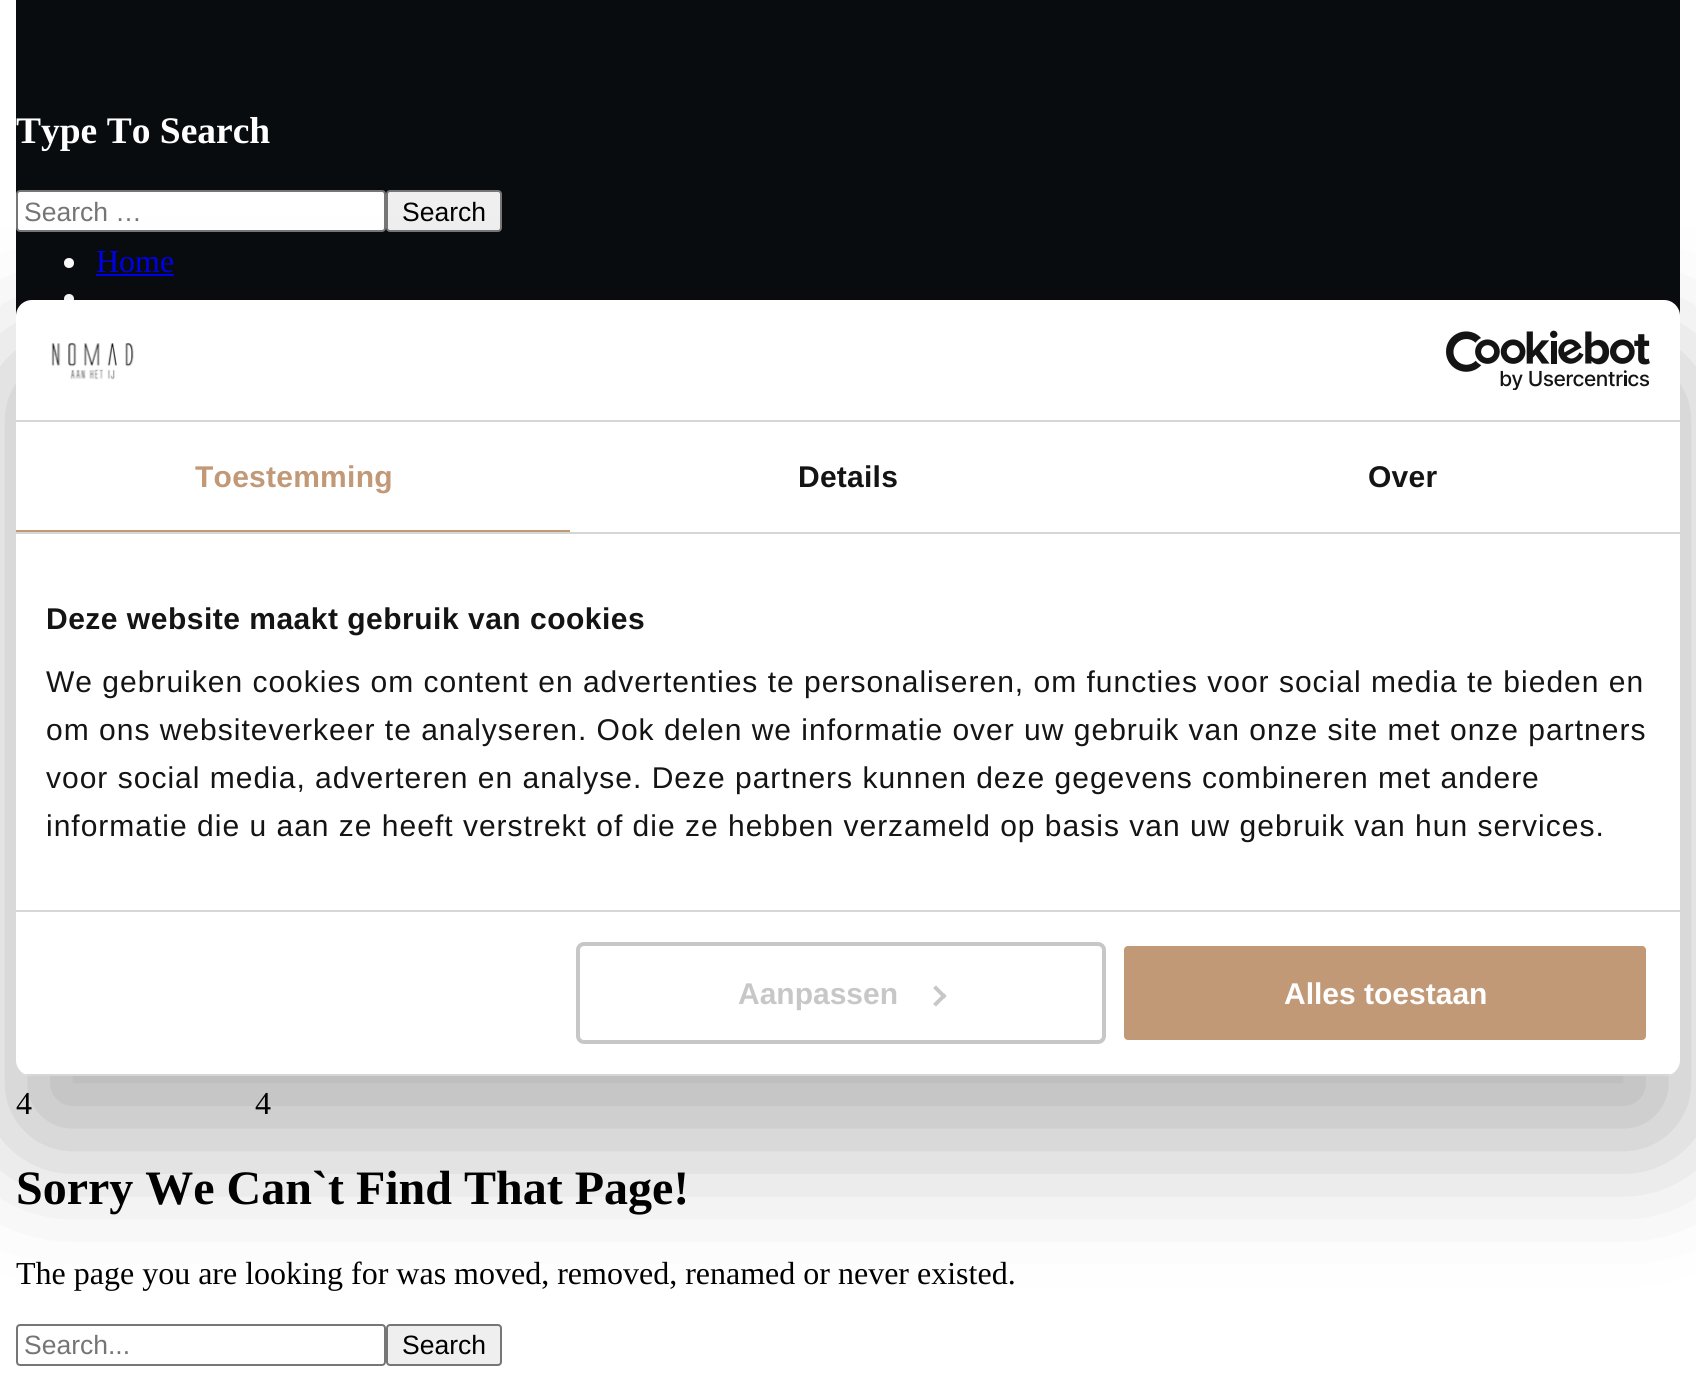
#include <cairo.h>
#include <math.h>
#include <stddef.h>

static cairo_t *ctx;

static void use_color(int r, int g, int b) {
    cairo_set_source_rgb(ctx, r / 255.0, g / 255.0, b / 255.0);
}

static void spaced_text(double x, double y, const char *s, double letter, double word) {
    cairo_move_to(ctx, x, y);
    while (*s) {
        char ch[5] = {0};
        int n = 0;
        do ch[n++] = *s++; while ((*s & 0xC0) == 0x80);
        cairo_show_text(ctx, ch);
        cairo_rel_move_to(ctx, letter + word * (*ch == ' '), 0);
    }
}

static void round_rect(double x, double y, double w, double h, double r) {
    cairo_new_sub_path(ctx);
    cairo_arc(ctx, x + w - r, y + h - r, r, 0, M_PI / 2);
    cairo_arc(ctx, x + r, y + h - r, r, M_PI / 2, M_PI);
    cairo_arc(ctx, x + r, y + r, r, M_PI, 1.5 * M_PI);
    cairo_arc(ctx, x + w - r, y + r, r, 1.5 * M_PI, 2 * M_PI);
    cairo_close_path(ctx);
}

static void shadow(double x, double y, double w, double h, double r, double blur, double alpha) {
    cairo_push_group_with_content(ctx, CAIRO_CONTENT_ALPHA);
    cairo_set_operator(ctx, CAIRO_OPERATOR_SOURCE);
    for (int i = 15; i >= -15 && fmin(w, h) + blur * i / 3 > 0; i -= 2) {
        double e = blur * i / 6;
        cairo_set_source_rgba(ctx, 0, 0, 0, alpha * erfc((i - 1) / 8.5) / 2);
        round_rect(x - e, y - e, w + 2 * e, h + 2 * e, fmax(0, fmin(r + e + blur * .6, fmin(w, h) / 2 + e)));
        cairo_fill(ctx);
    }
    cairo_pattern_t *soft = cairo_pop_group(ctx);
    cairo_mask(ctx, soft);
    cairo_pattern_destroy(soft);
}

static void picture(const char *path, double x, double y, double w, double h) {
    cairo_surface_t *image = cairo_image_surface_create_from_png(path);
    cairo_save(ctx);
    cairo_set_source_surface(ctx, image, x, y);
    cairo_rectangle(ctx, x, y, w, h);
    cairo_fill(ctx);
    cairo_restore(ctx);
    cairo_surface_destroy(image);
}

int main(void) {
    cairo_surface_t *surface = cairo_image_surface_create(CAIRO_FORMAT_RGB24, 1696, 1375);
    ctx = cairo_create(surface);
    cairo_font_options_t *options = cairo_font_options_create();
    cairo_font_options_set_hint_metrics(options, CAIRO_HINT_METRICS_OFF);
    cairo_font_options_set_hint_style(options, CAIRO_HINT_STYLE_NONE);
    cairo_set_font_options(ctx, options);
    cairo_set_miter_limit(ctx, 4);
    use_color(255, 255, 255);
    cairo_paint(ctx);
    use_color(9, 12, 15);
    cairo_rectangle(ctx, 16, 0, 1664, 316);
    cairo_fill(ctx);
    cairo_select_font_face(ctx, "Liberation Serif", CAIRO_FONT_SLANT_NORMAL, CAIRO_FONT_WEIGHT_BOLD);
    cairo_set_font_size(ctx, 37.5);
    use_color(255, 255, 255);
    cairo_move_to(ctx, 16, 143);
    cairo_show_text(ctx, "Type To Search");
    round_rect(17, 191, 368, 40, 3);
    cairo_fill_preserve(ctx);
    use_color(118, 118, 118);
    cairo_stroke(ctx);
    cairo_select_font_face(ctx, "Liberation Sans", CAIRO_FONT_SLANT_NORMAL, CAIRO_FONT_WEIGHT_NORMAL);
    cairo_set_font_size(ctx, 26.5);
    use_color(117, 117, 117);
    cairo_move_to(ctx, 24, 221);
    cairo_show_text(ctx, "Search …");
    use_color(239, 239, 239);
    round_rect(387, 191, 114, 40, 3);
    cairo_fill_preserve(ctx);
    use_color(118, 118, 118);
    cairo_stroke(ctx);
    use_color(0, 0, 0);
    cairo_move_to(ctx, 402, 221);
    cairo_show_text(ctx, "Search");
    use_color(255, 255, 255);
    cairo_new_path(ctx);
    cairo_arc(ctx, 69, 263, 5, 0, 2 * M_PI);
    cairo_fill(ctx);
    cairo_select_font_face(ctx, "Liberation Serif", CAIRO_FONT_SLANT_NORMAL, CAIRO_FONT_WEIGHT_NORMAL);
    cairo_set_font_size(ctx, 32);
    use_color(0, 0, 238);
    cairo_move_to(ctx, 96, 272);
    cairo_show_text(ctx, "Home");
    cairo_rectangle(ctx, 96, 274, 78, 2);
    cairo_fill(ctx);
    use_color(255, 255, 255);
    cairo_arc(ctx, 69, 299, 5, 0, 2 * M_PI);
    cairo_fill(ctx);
    round_rect(17, 1325, 368, 40, 3);
    use_color(118, 118, 118);
    cairo_stroke(ctx);
    use_color(239, 239, 239);
    round_rect(387, 1325, 114, 40, 3);
    cairo_fill_preserve(ctx);
    use_color(118, 118, 118);
    cairo_stroke(ctx);
    use_color(0, 0, 0);
    shadow(16, 364, 1664, 776, 16, 68, 0.3);
    use_color(255, 255, 255);
    round_rect(16, 300, 1664, 776, 16);
    cairo_fill(ctx);
    use_color(214, 214, 214);
    cairo_rectangle(ctx, 16, 420, 1664, 2);
    cairo_fill(ctx);
    picture("img1.png", 51, 343, 83, 37);
    picture("img2.png", 1446, 330, 204, 60);
    cairo_rectangle(ctx, 16, 532, 1664, 2);
    cairo_fill(ctx);
    use_color(193, 153, 119);
    cairo_rectangle(ctx, 16, 530, 554, 2);
    cairo_fill(ctx);
    cairo_select_font_face(ctx, "Liberation Sans", CAIRO_FONT_SLANT_NORMAL, CAIRO_FONT_WEIGHT_BOLD);
    cairo_set_font_size(ctx, 30);
    spaced_text(195, 487, "Toestemming", 0.25, 0);
    use_color(20, 20, 20);
    spaced_text(798, 487, "Details", 0.25, 0);
    spaced_text(1368, 487, "Over", 0.25, 0);
    use_color(214, 214, 214);
    cairo_rectangle(ctx, 16, 910, 1664, 2);
    cairo_fill(ctx);
    use_color(20, 20, 20);
    spaced_text(46, 629, "Deze website maakt gebruik van cookies", 0.5, 0);
    cairo_select_font_face(ctx, "Liberation Sans", CAIRO_FONT_SLANT_NORMAL, CAIRO_FONT_WEIGHT_NORMAL);
    spaced_text(46, 692, "We gebruiken cookies om content en advertenties te personaliseren, om functies voor social media te bieden en", 1, 0);
    spaced_text(46, 740, "om ons websiteverkeer te analyseren. Ook delen we informatie over uw gebruik van onze site met onze partners", 1, 0);
    spaced_text(46, 788, "voor social media, adverteren en analyse. Deze partners kunnen deze gegevens combineren met andere", 1, 0);
    spaced_text(46, 836, "informatie die u aan ze heeft verstrekt of die ze hebben verzameld op basis van uw gebruik van hun services.", 1, 0);
    cairo_save(ctx);
    round_rect(16, 300, 1664, 776, 16);
    cairo_clip(ctx);
    use_color(214, 214, 214);
    cairo_rectangle(ctx, 16, 1074, 1664, 2);
    cairo_fill(ctx);
    cairo_restore(ctx);
    round_rect(578, 944, 526, 98, 6);
    use_color(199, 199, 199);
    cairo_set_line_width(ctx, 4);
    cairo_stroke(ctx);
    cairo_select_font_face(ctx, "Liberation Sans", CAIRO_FONT_SLANT_NORMAL, CAIRO_FONT_WEIGHT_BOLD);
    cairo_move_to(ctx, 738, 1004);
    cairo_show_text(ctx, "Aanpassen");
    cairo_new_path(ctx);
    cairo_move_to(ctx, 936, 985.5);
    cairo_line_to(ctx, 946.5, 996);
    cairo_line_to(ctx, 944, 999);
    cairo_line_to(ctx, 933, 988);
    cairo_close_path(ctx);
    cairo_fill(ctx);
    cairo_new_path(ctx);
    cairo_move_to(ctx, 944, 993);
    cairo_line_to(ctx, 946.5, 996);
    cairo_line_to(ctx, 936, 1006.5);
    cairo_line_to(ctx, 933, 1004);
    cairo_close_path(ctx);
    cairo_fill(ctx);
    use_color(193, 153, 119);
    round_rect(1122, 944, 526, 98, 6);
    cairo_fill_preserve(ctx);
    use_color(255, 255, 255);
    cairo_stroke(ctx);
    cairo_move_to(ctx, 1284, 1004);
    cairo_show_text(ctx, "Alles toestaan");
    cairo_select_font_face(ctx, "Liberation Serif", CAIRO_FONT_SLANT_NORMAL, CAIRO_FONT_WEIGHT_NORMAL);
    cairo_set_font_size(ctx, 32);
    use_color(0, 0, 0);
    cairo_move_to(ctx, 16, 1114);
    cairo_show_text(ctx, "4");
    cairo_move_to(ctx, 255, 1114);
    cairo_show_text(ctx, "4");
    cairo_select_font_face(ctx, "Liberation Serif", CAIRO_FONT_SLANT_NORMAL, CAIRO_FONT_WEIGHT_BOLD);
    cairo_set_font_size(ctx, 48);
    cairo_move_to(ctx, 16, 1204);
    cairo_show_text(ctx, "Sorry We Can`t Find That Page!");
    cairo_select_font_face(ctx, "Liberation Serif", CAIRO_FONT_SLANT_NORMAL, CAIRO_FONT_WEIGHT_NORMAL);
    cairo_set_font_size(ctx, 32);
    cairo_move_to(ctx, 16, 1284);
    cairo_show_text(ctx, "The page you are looking for was moved, removed, renamed or never existed.");
    cairo_select_font_face(ctx, "Liberation Sans", CAIRO_FONT_SLANT_NORMAL, CAIRO_FONT_WEIGHT_NORMAL);
    cairo_set_font_size(ctx, 26.5);
    use_color(117, 117, 117);
    cairo_move_to(ctx, 24, 1354);
    cairo_show_text(ctx, "Search...");
    use_color(0, 0, 0);
    cairo_move_to(ctx, 402, 1354);
    cairo_show_text(ctx, "Search");
    cairo_surface_write_to_png(surface, "result.png");
    cairo_font_options_destroy(options);
    cairo_destroy(ctx);
    cairo_surface_destroy(surface);
    return 0;
}
